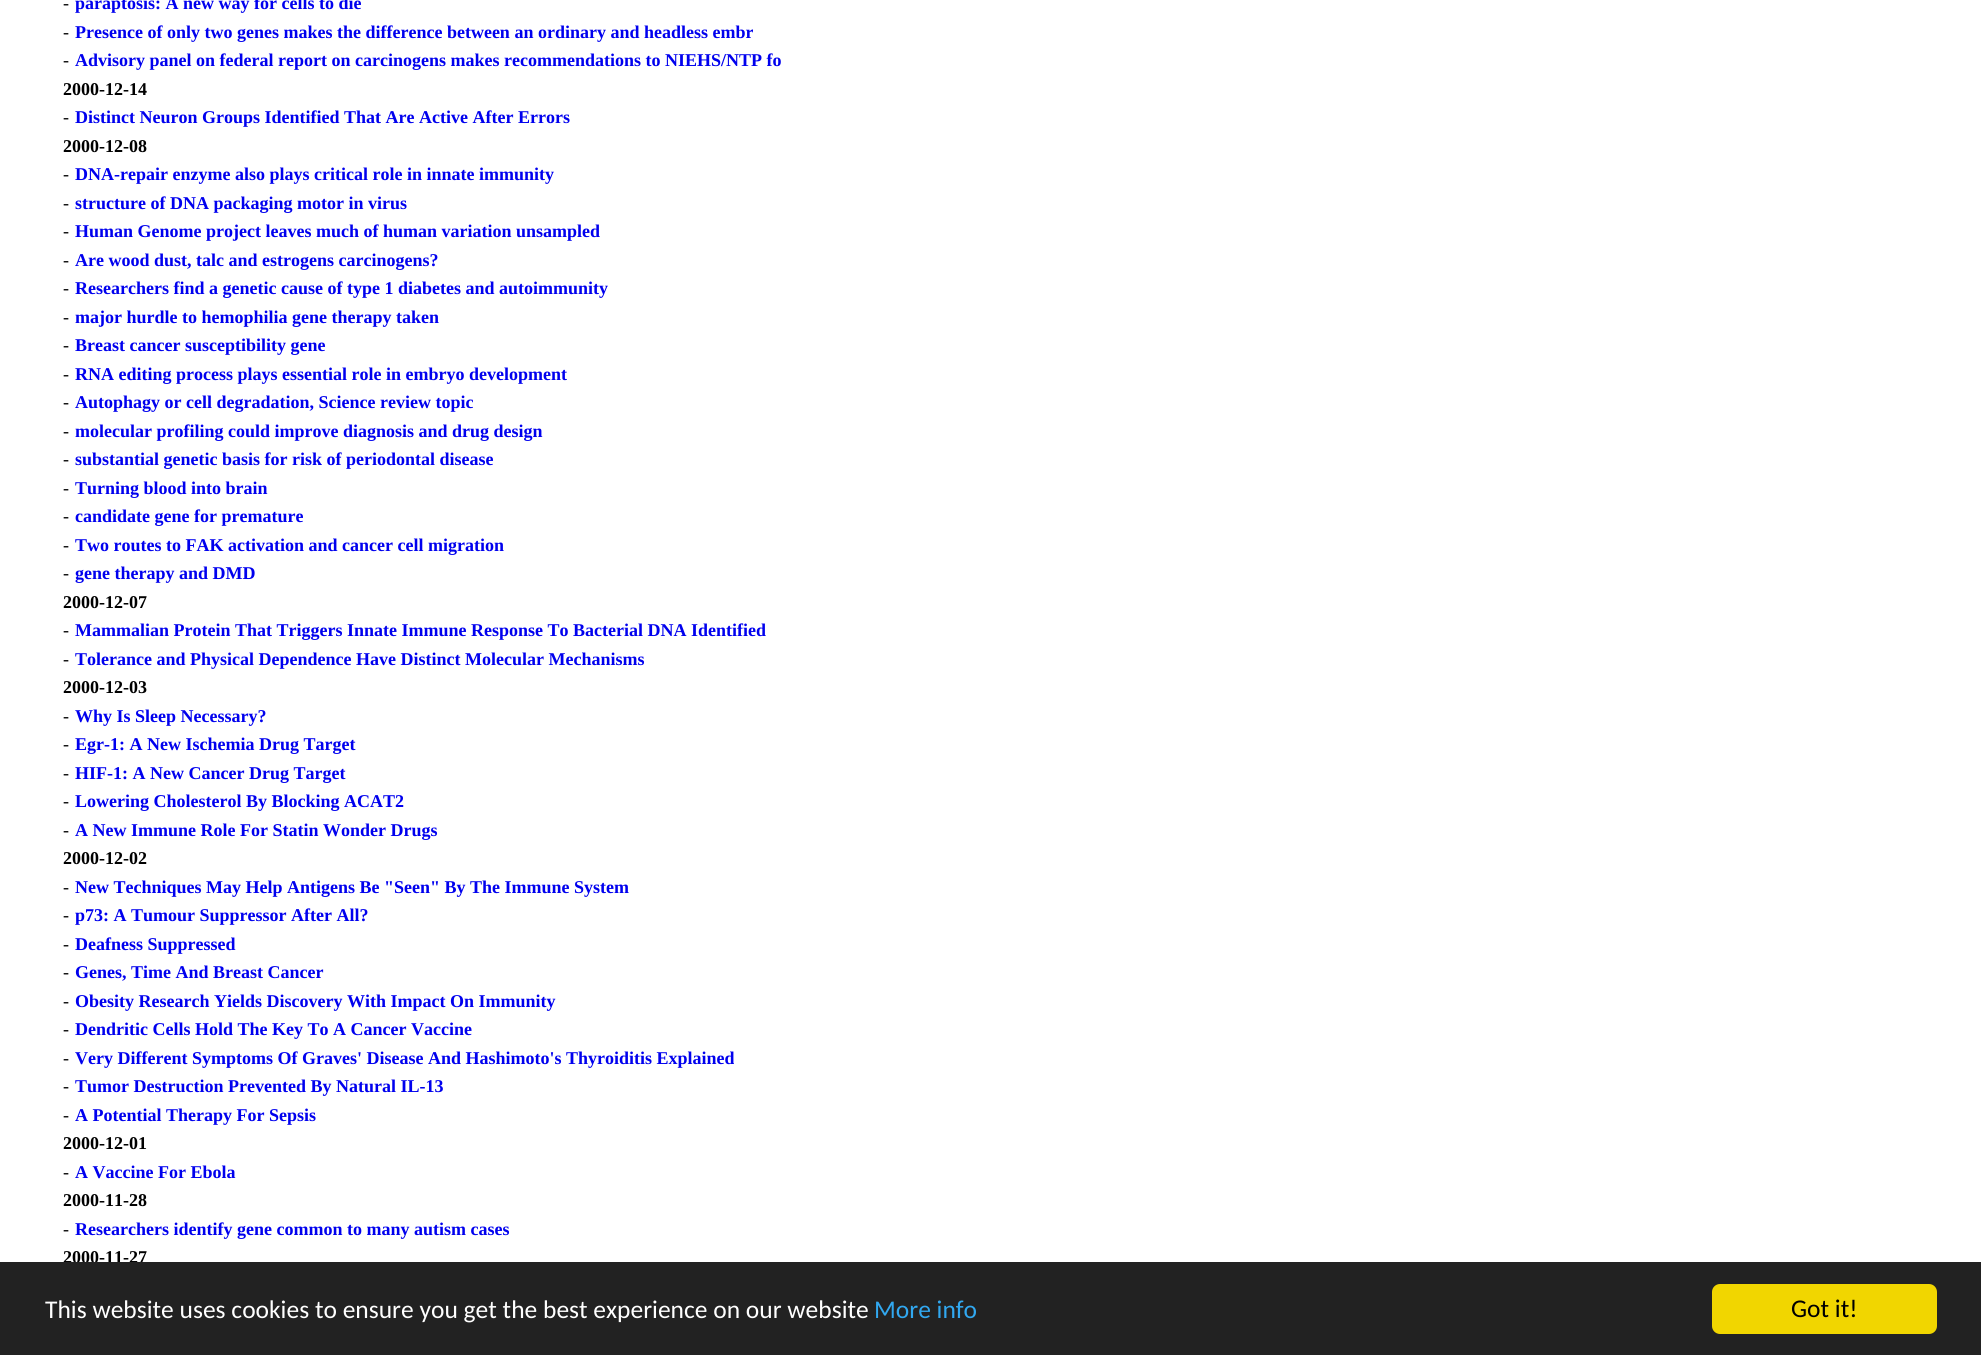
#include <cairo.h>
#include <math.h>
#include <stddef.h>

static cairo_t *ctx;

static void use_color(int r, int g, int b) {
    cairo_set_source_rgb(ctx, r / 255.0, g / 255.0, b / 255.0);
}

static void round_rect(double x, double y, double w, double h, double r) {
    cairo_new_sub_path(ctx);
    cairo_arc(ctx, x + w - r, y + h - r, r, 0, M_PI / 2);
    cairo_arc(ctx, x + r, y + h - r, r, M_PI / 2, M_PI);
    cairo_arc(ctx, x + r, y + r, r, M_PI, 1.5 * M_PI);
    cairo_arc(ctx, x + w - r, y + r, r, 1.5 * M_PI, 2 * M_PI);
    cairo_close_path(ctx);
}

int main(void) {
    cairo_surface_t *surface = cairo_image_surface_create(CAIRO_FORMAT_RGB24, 1981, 1355);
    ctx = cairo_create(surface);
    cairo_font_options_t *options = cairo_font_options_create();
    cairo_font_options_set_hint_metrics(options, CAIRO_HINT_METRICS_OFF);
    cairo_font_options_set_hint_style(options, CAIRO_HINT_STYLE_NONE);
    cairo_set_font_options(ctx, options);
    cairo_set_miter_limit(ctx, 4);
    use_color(255, 255, 255);
    cairo_paint(ctx);
    cairo_select_font_face(ctx, "Liberation Serif", CAIRO_FONT_SLANT_NORMAL, CAIRO_FONT_WEIGHT_NORMAL);
    cairo_set_font_size(ctx, 18);
    use_color(0, 0, 0);
    cairo_move_to(ctx, 63, 9);
    cairo_show_text(ctx, "-");
    cairo_select_font_face(ctx, "Liberation Serif", CAIRO_FONT_SLANT_NORMAL, CAIRO_FONT_WEIGHT_BOLD);
    use_color(0, 0, 238);
    cairo_move_to(ctx, 75, 9);
    cairo_show_text(ctx, "paraptosis: A new way for cells to die");
    cairo_select_font_face(ctx, "Liberation Serif", CAIRO_FONT_SLANT_NORMAL, CAIRO_FONT_WEIGHT_NORMAL);
    use_color(0, 0, 0);
    cairo_move_to(ctx, 63, 38);
    cairo_show_text(ctx, "-");
    cairo_select_font_face(ctx, "Liberation Serif", CAIRO_FONT_SLANT_NORMAL, CAIRO_FONT_WEIGHT_BOLD);
    use_color(0, 0, 238);
    cairo_move_to(ctx, 75, 38);
    cairo_show_text(ctx, "Presence of only two genes makes the difference between an ordinary and headless embr");
    cairo_select_font_face(ctx, "Liberation Serif", CAIRO_FONT_SLANT_NORMAL, CAIRO_FONT_WEIGHT_NORMAL);
    use_color(0, 0, 0);
    cairo_move_to(ctx, 63, 66);
    cairo_show_text(ctx, "-");
    cairo_select_font_face(ctx, "Liberation Serif", CAIRO_FONT_SLANT_NORMAL, CAIRO_FONT_WEIGHT_BOLD);
    use_color(0, 0, 238);
    cairo_move_to(ctx, 75, 66);
    cairo_show_text(ctx, "Advisory panel on federal report on carcinogens makes recommendations to NIEHS/NTP fo");
    use_color(0, 0, 0);
    cairo_move_to(ctx, 63, 95);
    cairo_show_text(ctx, "2000-12-14");
    cairo_select_font_face(ctx, "Liberation Serif", CAIRO_FONT_SLANT_NORMAL, CAIRO_FONT_WEIGHT_NORMAL);
    cairo_move_to(ctx, 63, 123);
    cairo_show_text(ctx, "-");
    cairo_select_font_face(ctx, "Liberation Serif", CAIRO_FONT_SLANT_NORMAL, CAIRO_FONT_WEIGHT_BOLD);
    use_color(0, 0, 238);
    cairo_move_to(ctx, 75, 123);
    cairo_show_text(ctx, "Distinct Neuron Groups Identified That Are Active After Errors");
    use_color(0, 0, 0);
    cairo_move_to(ctx, 63, 152);
    cairo_show_text(ctx, "2000-12-08");
    cairo_select_font_face(ctx, "Liberation Serif", CAIRO_FONT_SLANT_NORMAL, CAIRO_FONT_WEIGHT_NORMAL);
    cairo_move_to(ctx, 63, 180);
    cairo_show_text(ctx, "-");
    cairo_select_font_face(ctx, "Liberation Serif", CAIRO_FONT_SLANT_NORMAL, CAIRO_FONT_WEIGHT_BOLD);
    use_color(0, 0, 238);
    cairo_move_to(ctx, 75, 180);
    cairo_show_text(ctx, "DNA-repair enzyme also plays critical role in innate immunity");
    cairo_select_font_face(ctx, "Liberation Serif", CAIRO_FONT_SLANT_NORMAL, CAIRO_FONT_WEIGHT_NORMAL);
    use_color(0, 0, 0);
    cairo_move_to(ctx, 63, 209);
    cairo_show_text(ctx, "-");
    cairo_select_font_face(ctx, "Liberation Serif", CAIRO_FONT_SLANT_NORMAL, CAIRO_FONT_WEIGHT_BOLD);
    use_color(0, 0, 238);
    cairo_move_to(ctx, 75, 209);
    cairo_show_text(ctx, "structure of DNA packaging motor in virus");
    cairo_select_font_face(ctx, "Liberation Serif", CAIRO_FONT_SLANT_NORMAL, CAIRO_FONT_WEIGHT_NORMAL);
    use_color(0, 0, 0);
    cairo_move_to(ctx, 63, 237);
    cairo_show_text(ctx, "-");
    cairo_select_font_face(ctx, "Liberation Serif", CAIRO_FONT_SLANT_NORMAL, CAIRO_FONT_WEIGHT_BOLD);
    use_color(0, 0, 238);
    cairo_move_to(ctx, 75, 237);
    cairo_show_text(ctx, "Human Genome project leaves much of human variation unsampled");
    cairo_select_font_face(ctx, "Liberation Serif", CAIRO_FONT_SLANT_NORMAL, CAIRO_FONT_WEIGHT_NORMAL);
    use_color(0, 0, 0);
    cairo_move_to(ctx, 63, 266);
    cairo_show_text(ctx, "-");
    cairo_select_font_face(ctx, "Liberation Serif", CAIRO_FONT_SLANT_NORMAL, CAIRO_FONT_WEIGHT_BOLD);
    use_color(0, 0, 238);
    cairo_move_to(ctx, 75, 266);
    cairo_show_text(ctx, "Are wood dust, talc and estrogens carcinogens?");
    cairo_select_font_face(ctx, "Liberation Serif", CAIRO_FONT_SLANT_NORMAL, CAIRO_FONT_WEIGHT_NORMAL);
    use_color(0, 0, 0);
    cairo_move_to(ctx, 63, 294);
    cairo_show_text(ctx, "-");
    cairo_select_font_face(ctx, "Liberation Serif", CAIRO_FONT_SLANT_NORMAL, CAIRO_FONT_WEIGHT_BOLD);
    use_color(0, 0, 238);
    cairo_move_to(ctx, 75, 294);
    cairo_show_text(ctx, "Researchers find a genetic cause of type 1 diabetes and autoimmunity");
    cairo_select_font_face(ctx, "Liberation Serif", CAIRO_FONT_SLANT_NORMAL, CAIRO_FONT_WEIGHT_NORMAL);
    use_color(0, 0, 0);
    cairo_move_to(ctx, 63, 323);
    cairo_show_text(ctx, "-");
    cairo_select_font_face(ctx, "Liberation Serif", CAIRO_FONT_SLANT_NORMAL, CAIRO_FONT_WEIGHT_BOLD);
    use_color(0, 0, 238);
    cairo_move_to(ctx, 75, 323);
    cairo_show_text(ctx, "major hurdle to hemophilia gene therapy taken");
    cairo_select_font_face(ctx, "Liberation Serif", CAIRO_FONT_SLANT_NORMAL, CAIRO_FONT_WEIGHT_NORMAL);
    use_color(0, 0, 0);
    cairo_move_to(ctx, 63, 351);
    cairo_show_text(ctx, "-");
    cairo_select_font_face(ctx, "Liberation Serif", CAIRO_FONT_SLANT_NORMAL, CAIRO_FONT_WEIGHT_BOLD);
    use_color(0, 0, 238);
    cairo_move_to(ctx, 75, 351);
    cairo_show_text(ctx, "Breast cancer susceptibility gene");
    cairo_select_font_face(ctx, "Liberation Serif", CAIRO_FONT_SLANT_NORMAL, CAIRO_FONT_WEIGHT_NORMAL);
    use_color(0, 0, 0);
    cairo_move_to(ctx, 63, 380);
    cairo_show_text(ctx, "-");
    cairo_select_font_face(ctx, "Liberation Serif", CAIRO_FONT_SLANT_NORMAL, CAIRO_FONT_WEIGHT_BOLD);
    use_color(0, 0, 238);
    cairo_move_to(ctx, 75, 380);
    cairo_show_text(ctx, "RNA editing process plays essential role in embryo development");
    cairo_select_font_face(ctx, "Liberation Serif", CAIRO_FONT_SLANT_NORMAL, CAIRO_FONT_WEIGHT_NORMAL);
    use_color(0, 0, 0);
    cairo_move_to(ctx, 63, 408);
    cairo_show_text(ctx, "-");
    cairo_select_font_face(ctx, "Liberation Serif", CAIRO_FONT_SLANT_NORMAL, CAIRO_FONT_WEIGHT_BOLD);
    use_color(0, 0, 238);
    cairo_move_to(ctx, 75, 408);
    cairo_show_text(ctx, "Autophagy or cell degradation, Science review topic");
    cairo_select_font_face(ctx, "Liberation Serif", CAIRO_FONT_SLANT_NORMAL, CAIRO_FONT_WEIGHT_NORMAL);
    use_color(0, 0, 0);
    cairo_move_to(ctx, 63, 437);
    cairo_show_text(ctx, "-");
    cairo_select_font_face(ctx, "Liberation Serif", CAIRO_FONT_SLANT_NORMAL, CAIRO_FONT_WEIGHT_BOLD);
    use_color(0, 0, 238);
    cairo_move_to(ctx, 75, 437);
    cairo_show_text(ctx, "molecular profiling could improve diagnosis and drug design");
    cairo_select_font_face(ctx, "Liberation Serif", CAIRO_FONT_SLANT_NORMAL, CAIRO_FONT_WEIGHT_NORMAL);
    use_color(0, 0, 0);
    cairo_move_to(ctx, 63, 465);
    cairo_show_text(ctx, "-");
    cairo_select_font_face(ctx, "Liberation Serif", CAIRO_FONT_SLANT_NORMAL, CAIRO_FONT_WEIGHT_BOLD);
    use_color(0, 0, 238);
    cairo_move_to(ctx, 75, 465);
    cairo_show_text(ctx, "substantial genetic basis for risk of periodontal disease");
    cairo_select_font_face(ctx, "Liberation Serif", CAIRO_FONT_SLANT_NORMAL, CAIRO_FONT_WEIGHT_NORMAL);
    use_color(0, 0, 0);
    cairo_move_to(ctx, 63, 494);
    cairo_show_text(ctx, "-");
    cairo_select_font_face(ctx, "Liberation Serif", CAIRO_FONT_SLANT_NORMAL, CAIRO_FONT_WEIGHT_BOLD);
    use_color(0, 0, 238);
    cairo_move_to(ctx, 75, 494);
    cairo_show_text(ctx, "Turning blood into brain");
    cairo_select_font_face(ctx, "Liberation Serif", CAIRO_FONT_SLANT_NORMAL, CAIRO_FONT_WEIGHT_NORMAL);
    use_color(0, 0, 0);
    cairo_move_to(ctx, 63, 522);
    cairo_show_text(ctx, "-");
    cairo_select_font_face(ctx, "Liberation Serif", CAIRO_FONT_SLANT_NORMAL, CAIRO_FONT_WEIGHT_BOLD);
    use_color(0, 0, 238);
    cairo_move_to(ctx, 75, 522);
    cairo_show_text(ctx, "candidate gene for premature");
    cairo_select_font_face(ctx, "Liberation Serif", CAIRO_FONT_SLANT_NORMAL, CAIRO_FONT_WEIGHT_NORMAL);
    use_color(0, 0, 0);
    cairo_move_to(ctx, 63, 551);
    cairo_show_text(ctx, "-");
    cairo_select_font_face(ctx, "Liberation Serif", CAIRO_FONT_SLANT_NORMAL, CAIRO_FONT_WEIGHT_BOLD);
    use_color(0, 0, 238);
    cairo_move_to(ctx, 75, 551);
    cairo_show_text(ctx, "Two routes to FAK activation and cancer cell migration");
    cairo_select_font_face(ctx, "Liberation Serif", CAIRO_FONT_SLANT_NORMAL, CAIRO_FONT_WEIGHT_NORMAL);
    use_color(0, 0, 0);
    cairo_move_to(ctx, 63, 579);
    cairo_show_text(ctx, "-");
    cairo_select_font_face(ctx, "Liberation Serif", CAIRO_FONT_SLANT_NORMAL, CAIRO_FONT_WEIGHT_BOLD);
    use_color(0, 0, 238);
    cairo_move_to(ctx, 75, 579);
    cairo_show_text(ctx, "gene therapy and DMD");
    use_color(0, 0, 0);
    cairo_move_to(ctx, 63, 608);
    cairo_show_text(ctx, "2000-12-07");
    cairo_select_font_face(ctx, "Liberation Serif", CAIRO_FONT_SLANT_NORMAL, CAIRO_FONT_WEIGHT_NORMAL);
    cairo_move_to(ctx, 63, 636);
    cairo_show_text(ctx, "-");
    cairo_select_font_face(ctx, "Liberation Serif", CAIRO_FONT_SLANT_NORMAL, CAIRO_FONT_WEIGHT_BOLD);
    use_color(0, 0, 238);
    cairo_move_to(ctx, 75, 636);
    cairo_show_text(ctx, "Mammalian Protein That Triggers Innate Immune Response To Bacterial DNA Identified");
    cairo_select_font_face(ctx, "Liberation Serif", CAIRO_FONT_SLANT_NORMAL, CAIRO_FONT_WEIGHT_NORMAL);
    use_color(0, 0, 0);
    cairo_move_to(ctx, 63, 665);
    cairo_show_text(ctx, "-");
    cairo_select_font_face(ctx, "Liberation Serif", CAIRO_FONT_SLANT_NORMAL, CAIRO_FONT_WEIGHT_BOLD);
    use_color(0, 0, 238);
    cairo_move_to(ctx, 75, 665);
    cairo_show_text(ctx, "Tolerance and Physical Dependence Have Distinct Molecular Mechanisms");
    use_color(0, 0, 0);
    cairo_move_to(ctx, 63, 693);
    cairo_show_text(ctx, "2000-12-03");
    cairo_select_font_face(ctx, "Liberation Serif", CAIRO_FONT_SLANT_NORMAL, CAIRO_FONT_WEIGHT_NORMAL);
    cairo_move_to(ctx, 63, 722);
    cairo_show_text(ctx, "-");
    cairo_select_font_face(ctx, "Liberation Serif", CAIRO_FONT_SLANT_NORMAL, CAIRO_FONT_WEIGHT_BOLD);
    use_color(0, 0, 238);
    cairo_move_to(ctx, 75, 722);
    cairo_show_text(ctx, "Why Is Sleep Necessary?");
    cairo_select_font_face(ctx, "Liberation Serif", CAIRO_FONT_SLANT_NORMAL, CAIRO_FONT_WEIGHT_NORMAL);
    use_color(0, 0, 0);
    cairo_move_to(ctx, 63, 750);
    cairo_show_text(ctx, "-");
    cairo_select_font_face(ctx, "Liberation Serif", CAIRO_FONT_SLANT_NORMAL, CAIRO_FONT_WEIGHT_BOLD);
    use_color(0, 0, 238);
    cairo_move_to(ctx, 75, 750);
    cairo_show_text(ctx, "Egr-1: A New Ischemia Drug Target");
    cairo_select_font_face(ctx, "Liberation Serif", CAIRO_FONT_SLANT_NORMAL, CAIRO_FONT_WEIGHT_NORMAL);
    use_color(0, 0, 0);
    cairo_move_to(ctx, 63, 779);
    cairo_show_text(ctx, "-");
    cairo_select_font_face(ctx, "Liberation Serif", CAIRO_FONT_SLANT_NORMAL, CAIRO_FONT_WEIGHT_BOLD);
    use_color(0, 0, 238);
    cairo_move_to(ctx, 75, 779);
    cairo_show_text(ctx, "HIF-1: A New Cancer Drug Target");
    cairo_select_font_face(ctx, "Liberation Serif", CAIRO_FONT_SLANT_NORMAL, CAIRO_FONT_WEIGHT_NORMAL);
    use_color(0, 0, 0);
    cairo_move_to(ctx, 63, 807);
    cairo_show_text(ctx, "-");
    cairo_select_font_face(ctx, "Liberation Serif", CAIRO_FONT_SLANT_NORMAL, CAIRO_FONT_WEIGHT_BOLD);
    use_color(0, 0, 238);
    cairo_move_to(ctx, 75, 807);
    cairo_show_text(ctx, "Lowering Cholesterol By Blocking ACAT2");
    cairo_select_font_face(ctx, "Liberation Serif", CAIRO_FONT_SLANT_NORMAL, CAIRO_FONT_WEIGHT_NORMAL);
    use_color(0, 0, 0);
    cairo_move_to(ctx, 63, 836);
    cairo_show_text(ctx, "-");
    cairo_select_font_face(ctx, "Liberation Serif", CAIRO_FONT_SLANT_NORMAL, CAIRO_FONT_WEIGHT_BOLD);
    use_color(0, 0, 238);
    cairo_move_to(ctx, 75, 836);
    cairo_show_text(ctx, "A New Immune Role For Statin Wonder Drugs");
    use_color(0, 0, 0);
    cairo_move_to(ctx, 63, 864);
    cairo_show_text(ctx, "2000-12-02");
    cairo_select_font_face(ctx, "Liberation Serif", CAIRO_FONT_SLANT_NORMAL, CAIRO_FONT_WEIGHT_NORMAL);
    cairo_move_to(ctx, 63, 893);
    cairo_show_text(ctx, "-");
    cairo_select_font_face(ctx, "Liberation Serif", CAIRO_FONT_SLANT_NORMAL, CAIRO_FONT_WEIGHT_BOLD);
    use_color(0, 0, 238);
    cairo_move_to(ctx, 75, 893);
    cairo_show_text(ctx, "New Techniques May Help Antigens Be \"Seen\" By The Immune System");
    cairo_select_font_face(ctx, "Liberation Serif", CAIRO_FONT_SLANT_NORMAL, CAIRO_FONT_WEIGHT_NORMAL);
    use_color(0, 0, 0);
    cairo_move_to(ctx, 63, 921);
    cairo_show_text(ctx, "-");
    cairo_select_font_face(ctx, "Liberation Serif", CAIRO_FONT_SLANT_NORMAL, CAIRO_FONT_WEIGHT_BOLD);
    use_color(0, 0, 238);
    cairo_move_to(ctx, 75, 921);
    cairo_show_text(ctx, "p73: A Tumour Suppressor After All?");
    cairo_select_font_face(ctx, "Liberation Serif", CAIRO_FONT_SLANT_NORMAL, CAIRO_FONT_WEIGHT_NORMAL);
    use_color(0, 0, 0);
    cairo_move_to(ctx, 63, 950);
    cairo_show_text(ctx, "-");
    cairo_select_font_face(ctx, "Liberation Serif", CAIRO_FONT_SLANT_NORMAL, CAIRO_FONT_WEIGHT_BOLD);
    use_color(0, 0, 238);
    cairo_move_to(ctx, 75, 950);
    cairo_show_text(ctx, "Deafness Suppressed");
    cairo_select_font_face(ctx, "Liberation Serif", CAIRO_FONT_SLANT_NORMAL, CAIRO_FONT_WEIGHT_NORMAL);
    use_color(0, 0, 0);
    cairo_move_to(ctx, 63, 978);
    cairo_show_text(ctx, "-");
    cairo_select_font_face(ctx, "Liberation Serif", CAIRO_FONT_SLANT_NORMAL, CAIRO_FONT_WEIGHT_BOLD);
    use_color(0, 0, 238);
    cairo_move_to(ctx, 75, 978);
    cairo_show_text(ctx, "Genes, Time And Breast Cancer");
    cairo_select_font_face(ctx, "Liberation Serif", CAIRO_FONT_SLANT_NORMAL, CAIRO_FONT_WEIGHT_NORMAL);
    use_color(0, 0, 0);
    cairo_move_to(ctx, 63, 1007);
    cairo_show_text(ctx, "-");
    cairo_select_font_face(ctx, "Liberation Serif", CAIRO_FONT_SLANT_NORMAL, CAIRO_FONT_WEIGHT_BOLD);
    use_color(0, 0, 238);
    cairo_move_to(ctx, 75, 1007);
    cairo_show_text(ctx, "Obesity Research Yields Discovery With Impact On Immunity");
    cairo_select_font_face(ctx, "Liberation Serif", CAIRO_FONT_SLANT_NORMAL, CAIRO_FONT_WEIGHT_NORMAL);
    use_color(0, 0, 0);
    cairo_move_to(ctx, 63, 1035);
    cairo_show_text(ctx, "-");
    cairo_select_font_face(ctx, "Liberation Serif", CAIRO_FONT_SLANT_NORMAL, CAIRO_FONT_WEIGHT_BOLD);
    use_color(0, 0, 238);
    cairo_move_to(ctx, 75, 1035);
    cairo_show_text(ctx, "Dendritic Cells Hold The Key To A Cancer Vaccine");
    cairo_select_font_face(ctx, "Liberation Serif", CAIRO_FONT_SLANT_NORMAL, CAIRO_FONT_WEIGHT_NORMAL);
    use_color(0, 0, 0);
    cairo_move_to(ctx, 63, 1064);
    cairo_show_text(ctx, "-");
    cairo_select_font_face(ctx, "Liberation Serif", CAIRO_FONT_SLANT_NORMAL, CAIRO_FONT_WEIGHT_BOLD);
    use_color(0, 0, 238);
    cairo_move_to(ctx, 75, 1064);
    cairo_show_text(ctx, "Very Different Symptoms Of Graves' Disease And Hashimoto's Thyroiditis Explained");
    cairo_select_font_face(ctx, "Liberation Serif", CAIRO_FONT_SLANT_NORMAL, CAIRO_FONT_WEIGHT_NORMAL);
    use_color(0, 0, 0);
    cairo_move_to(ctx, 63, 1092);
    cairo_show_text(ctx, "-");
    cairo_select_font_face(ctx, "Liberation Serif", CAIRO_FONT_SLANT_NORMAL, CAIRO_FONT_WEIGHT_BOLD);
    use_color(0, 0, 238);
    cairo_move_to(ctx, 75, 1092);
    cairo_show_text(ctx, "Tumor Destruction Prevented By Natural IL-13");
    cairo_select_font_face(ctx, "Liberation Serif", CAIRO_FONT_SLANT_NORMAL, CAIRO_FONT_WEIGHT_NORMAL);
    use_color(0, 0, 0);
    cairo_move_to(ctx, 63, 1121);
    cairo_show_text(ctx, "-");
    cairo_select_font_face(ctx, "Liberation Serif", CAIRO_FONT_SLANT_NORMAL, CAIRO_FONT_WEIGHT_BOLD);
    use_color(0, 0, 238);
    cairo_move_to(ctx, 75, 1121);
    cairo_show_text(ctx, "A Potential Therapy For Sepsis");
    use_color(0, 0, 0);
    cairo_move_to(ctx, 63, 1149);
    cairo_show_text(ctx, "2000-12-01");
    cairo_select_font_face(ctx, "Liberation Serif", CAIRO_FONT_SLANT_NORMAL, CAIRO_FONT_WEIGHT_NORMAL);
    cairo_move_to(ctx, 63, 1178);
    cairo_show_text(ctx, "-");
    cairo_select_font_face(ctx, "Liberation Serif", CAIRO_FONT_SLANT_NORMAL, CAIRO_FONT_WEIGHT_BOLD);
    use_color(0, 0, 238);
    cairo_move_to(ctx, 75, 1178);
    cairo_show_text(ctx, "A Vaccine For Ebola");
    use_color(0, 0, 0);
    cairo_move_to(ctx, 63, 1206);
    cairo_show_text(ctx, "2000-11-28");
    cairo_select_font_face(ctx, "Liberation Serif", CAIRO_FONT_SLANT_NORMAL, CAIRO_FONT_WEIGHT_NORMAL);
    cairo_move_to(ctx, 63, 1235);
    cairo_show_text(ctx, "-");
    cairo_select_font_face(ctx, "Liberation Serif", CAIRO_FONT_SLANT_NORMAL, CAIRO_FONT_WEIGHT_BOLD);
    use_color(0, 0, 238);
    cairo_move_to(ctx, 75, 1235);
    cairo_show_text(ctx, "Researchers identify gene common to many autism cases");
    use_color(0, 0, 0);
    cairo_move_to(ctx, 63, 1263);
    cairo_show_text(ctx, "2000-11-27");
    use_color(34, 34, 34);
    cairo_rectangle(ctx, 0, 1262, 1981, 93);
    cairo_fill(ctx);
    cairo_select_font_face(ctx, "Carlito", CAIRO_FONT_SLANT_NORMAL, CAIRO_FONT_WEIGHT_NORMAL);
    cairo_set_font_size(ctx, 25.5);
    use_color(255, 255, 255);
    cairo_move_to(ctx, 45, 1318);
    cairo_show_text(ctx, "This website uses cookies to ensure you get the best experience on our website");
    use_color(49, 168, 240);
    cairo_move_to(ctx, 874, 1318);
    cairo_show_text(ctx, "More info");
    use_color(241, 214, 0);
    round_rect(1712, 1284, 225, 50, 8);
    cairo_fill(ctx);
    use_color(0, 0, 0);
    cairo_move_to(ctx, 1791, 1317);
    cairo_show_text(ctx, "Got it!");
    cairo_surface_write_to_png(surface, "result.png");
    cairo_font_options_destroy(options);
    cairo_destroy(ctx);
    cairo_surface_destroy(surface);
    return 0;
}
